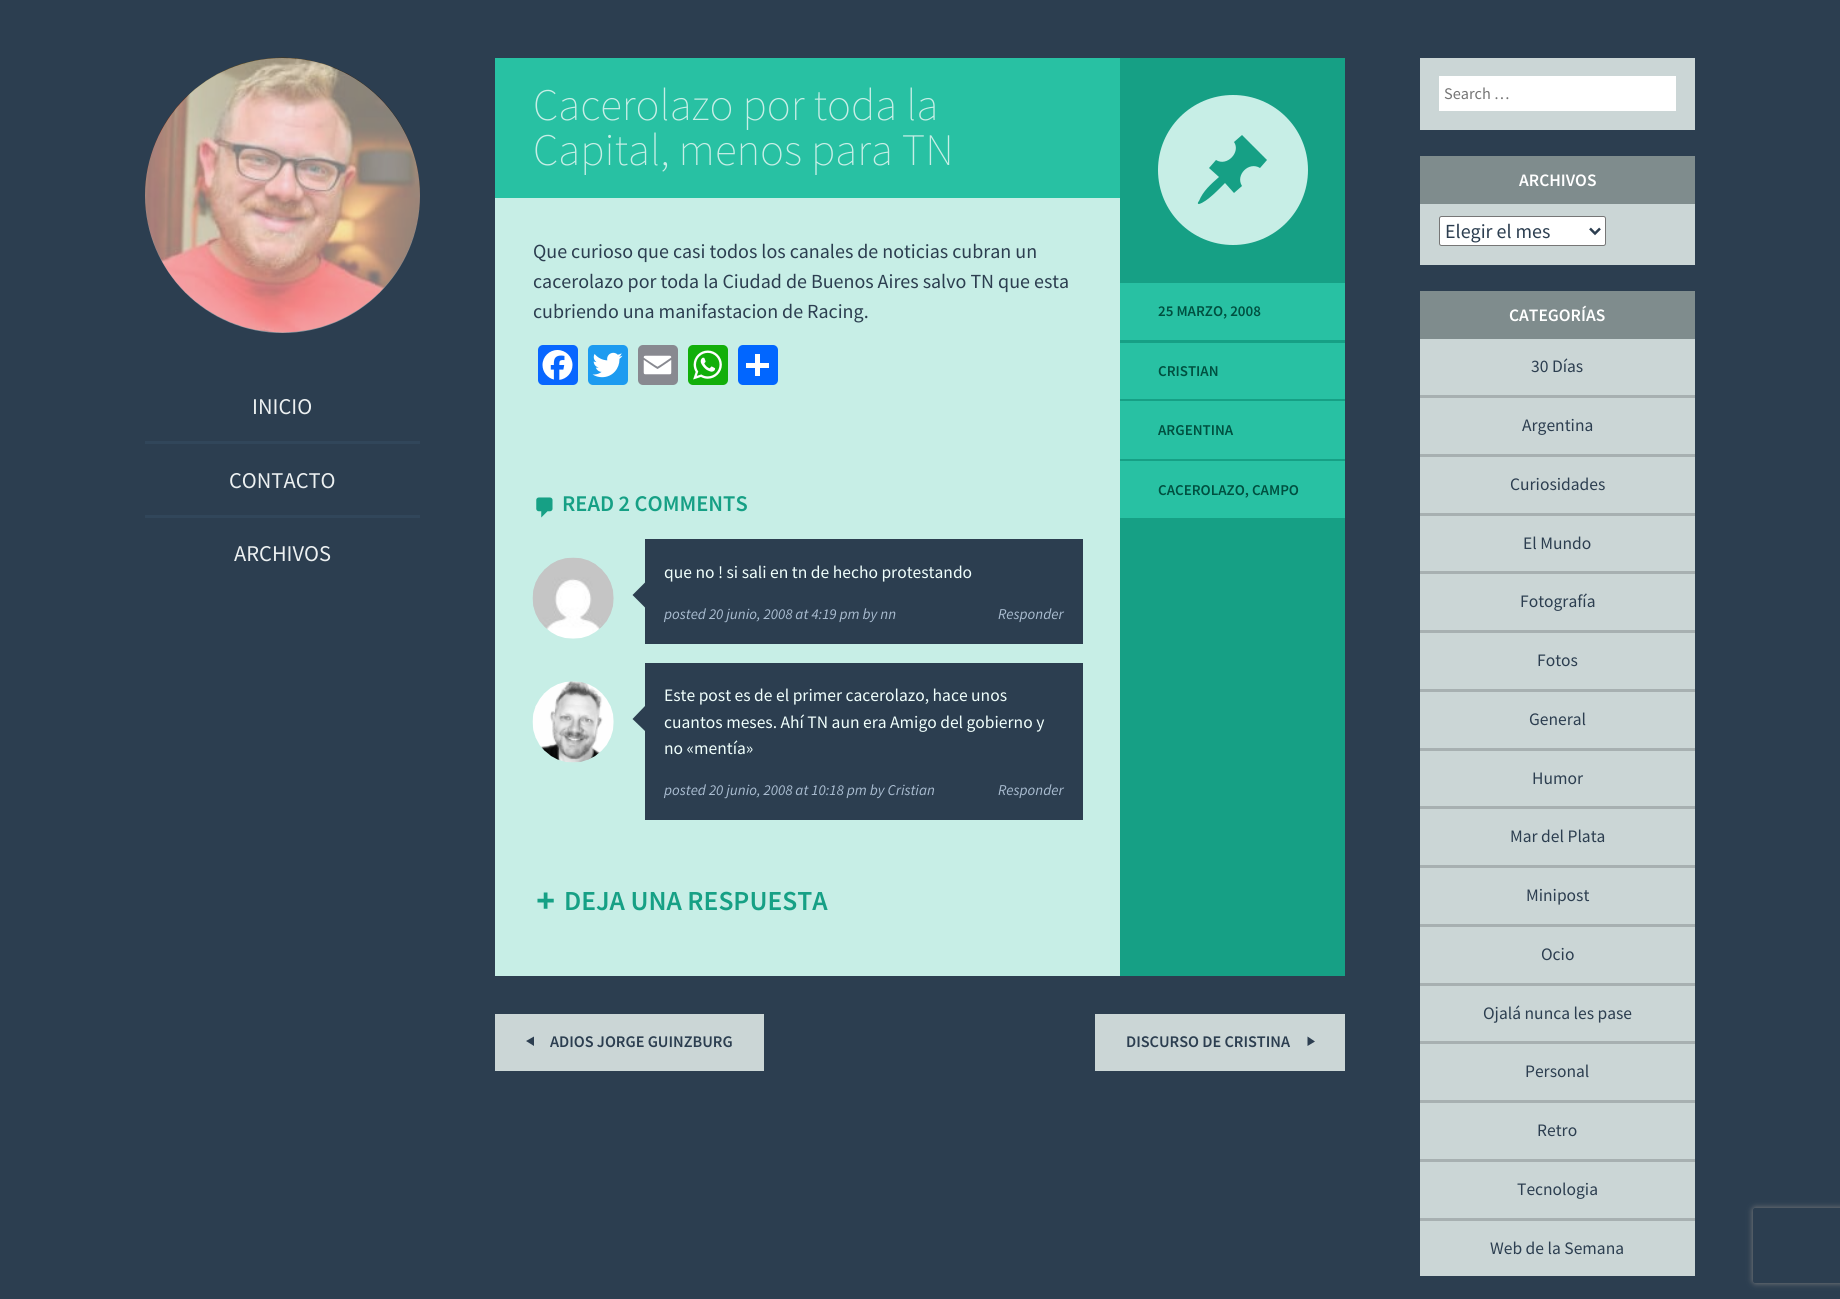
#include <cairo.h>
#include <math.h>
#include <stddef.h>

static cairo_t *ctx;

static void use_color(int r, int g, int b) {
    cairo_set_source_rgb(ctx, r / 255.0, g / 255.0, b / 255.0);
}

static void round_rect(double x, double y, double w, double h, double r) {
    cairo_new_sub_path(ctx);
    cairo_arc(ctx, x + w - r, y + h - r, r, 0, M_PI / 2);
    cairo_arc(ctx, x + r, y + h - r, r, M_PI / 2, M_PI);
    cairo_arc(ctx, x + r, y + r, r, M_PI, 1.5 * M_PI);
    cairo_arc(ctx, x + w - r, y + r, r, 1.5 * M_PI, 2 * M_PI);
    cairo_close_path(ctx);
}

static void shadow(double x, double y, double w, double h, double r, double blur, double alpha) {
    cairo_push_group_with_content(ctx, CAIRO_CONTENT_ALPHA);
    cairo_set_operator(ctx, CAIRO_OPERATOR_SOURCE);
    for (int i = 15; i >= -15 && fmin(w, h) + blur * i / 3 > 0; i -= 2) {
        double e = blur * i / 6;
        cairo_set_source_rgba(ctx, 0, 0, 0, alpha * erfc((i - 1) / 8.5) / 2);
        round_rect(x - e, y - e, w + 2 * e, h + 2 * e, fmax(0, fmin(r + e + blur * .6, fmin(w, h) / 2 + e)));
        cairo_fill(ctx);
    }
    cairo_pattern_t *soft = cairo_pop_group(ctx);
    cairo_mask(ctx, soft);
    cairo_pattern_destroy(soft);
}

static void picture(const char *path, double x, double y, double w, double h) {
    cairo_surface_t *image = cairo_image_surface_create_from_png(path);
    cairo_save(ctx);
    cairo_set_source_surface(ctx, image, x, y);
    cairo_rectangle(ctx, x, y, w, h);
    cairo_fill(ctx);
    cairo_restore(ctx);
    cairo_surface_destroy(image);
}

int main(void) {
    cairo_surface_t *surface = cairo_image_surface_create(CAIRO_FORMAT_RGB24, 1840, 1299);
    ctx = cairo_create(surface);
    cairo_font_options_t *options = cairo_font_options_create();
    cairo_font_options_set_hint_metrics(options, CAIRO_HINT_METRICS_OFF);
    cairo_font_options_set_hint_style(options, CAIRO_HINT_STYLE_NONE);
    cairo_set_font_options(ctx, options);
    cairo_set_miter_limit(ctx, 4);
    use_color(44, 62, 80);
    cairo_paint(ctx);
    picture("img1.png", 145, 57, 275, 276);
    cairo_set_source_rgba(ctx, 0.925, 0.941, 0.945, 0.5);
    cairo_arc(ctx, 282.5, 195.5, 137.5, 0, 2 * M_PI);
    cairo_fill(ctx);
    use_color(49, 70, 90);
    cairo_rectangle(ctx, 145, 441, 275, 3);
    cairo_fill(ctx);
    cairo_select_font_face(ctx, "Source Sans Pro", CAIRO_FONT_SLANT_NORMAL, CAIRO_FONT_WEIGHT_NORMAL);
    cairo_set_font_size(ctx, 22.5);
    use_color(236, 240, 241);
    cairo_move_to(ctx, 252, 414);
    cairo_show_text(ctx, "INICIO");
    use_color(49, 70, 90);
    cairo_rectangle(ctx, 145, 515, 275, 3);
    cairo_fill(ctx);
    use_color(236, 240, 241);
    cairo_move_to(ctx, 229, 488);
    cairo_show_text(ctx, "CONTACTO");
    cairo_move_to(ctx, 234, 561);
    cairo_show_text(ctx, "ARCHIVOS");
    use_color(199, 238, 230);
    cairo_rectangle(ctx, 495, 198, 625, 778);
    cairo_fill(ctx);
    use_color(40, 193, 163);
    cairo_rectangle(ctx, 495, 58, 625, 140);
    cairo_fill(ctx);
    cairo_select_font_face(ctx, "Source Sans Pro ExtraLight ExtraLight", CAIRO_FONT_SLANT_NORMAL, CAIRO_FONT_WEIGHT_NORMAL);
    cairo_set_font_size(ctx, 45);
    use_color(199, 238, 230);
    cairo_move_to(ctx, 533, 120);
    cairo_show_text(ctx, "Cacerolazo por toda la");
    cairo_move_to(ctx, 533, 165);
    cairo_show_text(ctx, "Capital, menos para TN");
    cairo_select_font_face(ctx, "Source Sans Pro", CAIRO_FONT_SLANT_NORMAL, CAIRO_FONT_WEIGHT_NORMAL);
    cairo_set_font_size(ctx, 20);
    use_color(44, 62, 80);
    cairo_move_to(ctx, 533, 258);
    cairo_show_text(ctx, "Que curioso que casi todos los canales de noticias cubran un");
    cairo_move_to(ctx, 533, 288);
    cairo_show_text(ctx, "cacerolazo por toda la Ciudad de Buenos Aires salvo TN que esta");
    cairo_move_to(ctx, 533, 318);
    cairo_show_text(ctx, "cubriendo una manifastacion de Racing.");
    use_color(8, 102, 255);
    round_rect(538, 345, 40, 40, 5);
    cairo_fill(ctx);
    picture("img2.png", 542, 350, 31, 30);
    use_color(29, 155, 240);
    round_rect(588, 345, 40, 40, 5);
    cairo_fill(ctx);
    picture("img3.png", 592, 352, 31, 26);
    use_color(136, 137, 144);
    round_rect(638, 345, 40, 40, 5);
    cairo_fill(ctx);
    picture("img4.png", 643, 355, 29, 20);
    use_color(18, 175, 10);
    round_rect(688, 345, 40, 40, 5);
    cairo_fill(ctx);
    picture("img5.png", 693, 350, 29, 30);
    use_color(1, 102, 255);
    round_rect(738, 345, 40, 40, 5);
    cairo_fill(ctx);
    use_color(255, 255, 255);
    cairo_rectangle(ctx, 755, 354, 5, 22);
    cairo_fill(ctx);
    cairo_rectangle(ctx, 746, 363, 23, 5);
    cairo_fill(ctx);
    picture("img6.png", 536, 497, 17, 21);
    cairo_select_font_face(ctx, "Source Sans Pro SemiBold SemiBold", CAIRO_FONT_SLANT_NORMAL, CAIRO_FONT_WEIGHT_NORMAL);
    cairo_set_font_size(ctx, 22.5);
    use_color(22, 160, 133);
    cairo_move_to(ctx, 562, 511);
    cairo_show_text(ctx, "READ 2 COMMENTS");
    use_color(44, 62, 80);
    cairo_rectangle(ctx, 645, 539, 438, 105);
    cairo_fill(ctx);
    picture("img7.png", 532, 557, 82, 82);
    cairo_select_font_face(ctx, "Source Sans Pro", CAIRO_FONT_SLANT_NORMAL, CAIRO_FONT_WEIGHT_NORMAL);
    cairo_set_font_size(ctx, 17.5);
    use_color(240, 255, 252);
    cairo_move_to(ctx, 664, 578);
    cairo_show_text(ctx, "que no ! si sali en tn de hecho protestando");
    use_color(44, 62, 80);
    cairo_new_path(ctx);
    cairo_move_to(ctx, 645, 582.5);
    cairo_line_to(ctx, 645, 607.5);
    cairo_line_to(ctx, 632.5, 595);
    cairo_close_path(ctx);
    cairo_fill(ctx);
    cairo_select_font_face(ctx, "Source Sans Pro", CAIRO_FONT_SLANT_ITALIC, CAIRO_FONT_WEIGHT_NORMAL);
    cairo_set_font_size(ctx, 15);
    use_color(170, 189, 209);
    cairo_move_to(ctx, 664, 619);
    cairo_show_text(ctx, "posted 20 junio, 2008 at 4:19 pm by nn");
    cairo_move_to(ctx, 998, 619);
    cairo_show_text(ctx, "Responder");
    use_color(44, 62, 80);
    cairo_rectangle(ctx, 645, 663, 438, 157);
    cairo_fill(ctx);
    picture("img8.png", 532, 681, 82, 82);
    cairo_new_path(ctx);
    cairo_move_to(ctx, 645, 706);
    cairo_line_to(ctx, 645, 731);
    cairo_line_to(ctx, 632.5, 719);
    cairo_close_path(ctx);
    cairo_fill(ctx);
    cairo_select_font_face(ctx, "Source Sans Pro", CAIRO_FONT_SLANT_NORMAL, CAIRO_FONT_WEIGHT_NORMAL);
    cairo_set_font_size(ctx, 17.5);
    use_color(240, 255, 252);
    cairo_move_to(ctx, 664, 701);
    cairo_show_text(ctx, "Este post es de el primer cacerolazo, hace unos");
    cairo_move_to(ctx, 664, 728);
    cairo_show_text(ctx, "cuantos meses. Ahí TN aun era Amigo del gobierno y");
    cairo_move_to(ctx, 664, 754);
    cairo_show_text(ctx, "no «mentía»");
    cairo_select_font_face(ctx, "Source Sans Pro", CAIRO_FONT_SLANT_ITALIC, CAIRO_FONT_WEIGHT_NORMAL);
    cairo_set_font_size(ctx, 15);
    use_color(170, 189, 209);
    cairo_move_to(ctx, 664, 795);
    cairo_show_text(ctx, "posted 20 junio, 2008 at 10:18 pm by Cristian");
    cairo_move_to(ctx, 998, 795);
    cairo_show_text(ctx, "Responder");
    picture("img9.png", 537, 892, 17, 17);
    cairo_select_font_face(ctx, "Source Sans Pro SemiBold SemiBold", CAIRO_FONT_SLANT_NORMAL, CAIRO_FONT_WEIGHT_NORMAL);
    cairo_set_font_size(ctx, 27.5);
    use_color(22, 160, 133);
    cairo_move_to(ctx, 564, 910);
    cairo_show_text(ctx, "DEJA UNA RESPUESTA");
    cairo_save(ctx);
    cairo_set_fill_rule(ctx, CAIRO_FILL_RULE_EVEN_ODD);
    cairo_new_path(ctx);
    cairo_move_to(ctx, 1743, 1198);
    cairo_line_to(ctx, 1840, 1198);
    cairo_line_to(ctx, 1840, 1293);
    cairo_line_to(ctx, 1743, 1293);
    cairo_close_path(ctx);
    cairo_move_to(ctx, 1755.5, 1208);
    cairo_line_to(ctx, 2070.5, 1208);
    cairo_curve_to(ctx, 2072, 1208, 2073, 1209, 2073, 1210.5);
    cairo_line_to(ctx, 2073, 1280.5);
    cairo_curve_to(ctx, 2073, 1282, 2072, 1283, 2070.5, 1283);
    cairo_line_to(ctx, 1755.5, 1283);
    cairo_curve_to(ctx, 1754, 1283, 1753, 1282, 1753, 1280.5);
    cairo_line_to(ctx, 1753, 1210.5);
    cairo_curve_to(ctx, 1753, 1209, 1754, 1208, 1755.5, 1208);
    cairo_close_path(ctx);
    cairo_clip(ctx);
    use_color(128, 128, 128);
    shadow(1753, 1208, 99, 75, 2.5, 3, 1);
    cairo_restore(ctx);
    cairo_rectangle(ctx, 1120, 58, 225, 918);
    cairo_fill(ctx);
    use_color(199, 238, 230);
    cairo_arc(ctx, 1233, 170, 75, 0, 2 * M_PI);
    cairo_fill(ctx);
    use_color(22, 160, 133);
    cairo_new_path(ctx);
    cairo_move_to(ctx, 1234, 142);
    cairo_line_to(ctx, 1242, 135);
    cairo_line_to(ctx, 1267, 160);
    cairo_line_to(ctx, 1260, 168);
    cairo_curve_to(ctx, 1249, 161, 1235, 175, 1242, 186);
    cairo_line_to(ctx, 1234, 193);
    cairo_line_to(ctx, 1225, 183);
    cairo_curve_to(ctx, 1220, 188, 1207, 202, 1199, 204);
    cairo_curve_to(ctx, 1197, 204, 1198, 202, 1199, 201);
    cairo_curve_to(ctx, 1203, 191, 1211, 184, 1219, 177);
    cairo_line_to(ctx, 1209, 168);
    cairo_line_to(ctx, 1216, 160);
    cairo_curve_to(ctx, 1227, 167, 1241, 152, 1234, 142);
    cairo_close_path(ctx);
    cairo_fill(ctx);
    use_color(40, 193, 163);
    cairo_rectangle(ctx, 1120, 283, 225, 57);
    cairo_fill(ctx);
    cairo_set_font_size(ctx, 15);
    use_color(0, 80, 64);
    cairo_move_to(ctx, 1158, 316);
    cairo_show_text(ctx, "25 MARZO, 2008");
    use_color(40, 193, 163);
    cairo_rectangle(ctx, 1120, 343, 225, 56);
    cairo_fill(ctx);
    use_color(0, 80, 64);
    cairo_move_to(ctx, 1158, 376);
    cairo_show_text(ctx, "CRISTIAN");
    use_color(40, 193, 163);
    cairo_rectangle(ctx, 1120, 401, 225, 58);
    cairo_fill(ctx);
    use_color(0, 80, 64);
    cairo_move_to(ctx, 1158, 435);
    cairo_show_text(ctx, "ARGENTINA");
    use_color(40, 193, 163);
    cairo_rectangle(ctx, 1120, 461, 225, 57);
    cairo_fill(ctx);
    use_color(0, 80, 64);
    cairo_move_to(ctx, 1158, 495);
    cairo_show_text(ctx, "CACEROLAZO, CAMPO");
    use_color(203, 214, 214);
    cairo_rectangle(ctx, 495, 1014, 269, 57);
    cairo_fill(ctx);
    use_color(44, 62, 80);
    cairo_new_path(ctx);
    cairo_move_to(ctx, 534, 1046);
    cairo_line_to(ctx, 526, 1041);
    cairo_line_to(ctx, 534, 1036.5);
    cairo_close_path(ctx);
    cairo_fill(ctx);
    cairo_set_font_size(ctx, 16.25);
    cairo_move_to(ctx, 550, 1047);
    cairo_show_text(ctx, "ADIOS JORGE GUINZBURG");
    use_color(203, 214, 214);
    cairo_rectangle(ctx, 1095, 1014, 250, 57);
    cairo_fill(ctx);
    use_color(44, 62, 80);
    cairo_move_to(ctx, 1126, 1047);
    cairo_show_text(ctx, "DISCURSO DE CRISTINA");
    cairo_new_path(ctx);
    cairo_move_to(ctx, 1307.5, 1036.5);
    cairo_line_to(ctx, 1315, 1041.5);
    cairo_line_to(ctx, 1307.5, 1046);
    cairo_close_path(ctx);
    cairo_fill(ctx);
    use_color(203, 214, 214);
    cairo_rectangle(ctx, 1420, 58, 275, 72);
    cairo_fill(ctx);
    use_color(255, 255, 255);
    cairo_rectangle(ctx, 1439, 76, 237, 35);
    cairo_fill(ctx);
    cairo_select_font_face(ctx, "Source Sans Pro", CAIRO_FONT_SLANT_NORMAL, CAIRO_FONT_WEIGHT_NORMAL);
    use_color(117, 117, 117);
    cairo_move_to(ctx, 1444, 99);
    cairo_show_text(ctx, "Search …");
    use_color(203, 214, 214);
    cairo_rectangle(ctx, 1420, 204, 275, 61);
    cairo_fill(ctx);
    use_color(127, 140, 141);
    cairo_rectangle(ctx, 1420, 156, 275, 48);
    cairo_fill(ctx);
    cairo_select_font_face(ctx, "Source Sans Pro SemiBold SemiBold", CAIRO_FONT_SLANT_NORMAL, CAIRO_FONT_WEIGHT_NORMAL);
    cairo_set_font_size(ctx, 17.5);
    use_color(255, 255, 255);
    cairo_move_to(ctx, 1519, 186);
    cairo_show_text(ctx, "ARCHIVOS");
    round_rect(1439.5, 216.5, 166, 29, 2);
    cairo_fill_preserve(ctx);
    use_color(118, 118, 118);
    cairo_set_line_width(ctx, 1);
    cairo_stroke(ctx);
    cairo_new_path(ctx);
    cairo_move_to(ctx, 1590, 228.5);
    cairo_line_to(ctx, 1595, 233.5);
    cairo_line_to(ctx, 1600, 228.5);
    use_color(44, 62, 80);
    cairo_set_line_width(ctx, 2.5);
    cairo_stroke(ctx);
    cairo_select_font_face(ctx, "Source Sans Pro", CAIRO_FONT_SLANT_NORMAL, CAIRO_FONT_WEIGHT_NORMAL);
    cairo_set_font_size(ctx, 20);
    cairo_move_to(ctx, 1445, 238);
    cairo_show_text(ctx, "Elegir el mes");
    use_color(203, 214, 214);
    cairo_rectangle(ctx, 1420, 339, 275, 937);
    cairo_fill(ctx);
    use_color(127, 140, 141);
    cairo_rectangle(ctx, 1420, 291, 275, 48);
    cairo_fill(ctx);
    cairo_select_font_face(ctx, "Source Sans Pro SemiBold SemiBold", CAIRO_FONT_SLANT_NORMAL, CAIRO_FONT_WEIGHT_NORMAL);
    cairo_set_font_size(ctx, 17.5);
    use_color(255, 255, 255);
    cairo_move_to(ctx, 1509, 321);
    cairo_show_text(ctx, "CATEGORÍAS");
    use_color(167, 176, 177);
    cairo_rectangle(ctx, 1420, 395, 275, 3);
    cairo_fill(ctx);
    cairo_select_font_face(ctx, "Source Sans Pro", CAIRO_FONT_SLANT_NORMAL, CAIRO_FONT_WEIGHT_NORMAL);
    use_color(44, 62, 80);
    cairo_move_to(ctx, 1531, 372);
    cairo_show_text(ctx, "30 Días");
    use_color(167, 176, 177);
    cairo_rectangle(ctx, 1420, 454, 275, 3);
    cairo_fill(ctx);
    use_color(44, 62, 80);
    cairo_move_to(ctx, 1522, 431);
    cairo_show_text(ctx, "Argentina");
    use_color(167, 176, 177);
    cairo_rectangle(ctx, 1420, 513, 275, 3);
    cairo_fill(ctx);
    use_color(44, 62, 80);
    cairo_move_to(ctx, 1510, 490);
    cairo_show_text(ctx, "Curiosidades");
    use_color(167, 176, 177);
    cairo_rectangle(ctx, 1420, 571, 275, 3);
    cairo_fill(ctx);
    use_color(44, 62, 80);
    cairo_move_to(ctx, 1523, 549);
    cairo_show_text(ctx, "El Mundo");
    use_color(167, 176, 177);
    cairo_rectangle(ctx, 1420, 630, 275, 3);
    cairo_fill(ctx);
    use_color(44, 62, 80);
    cairo_move_to(ctx, 1520, 607);
    cairo_show_text(ctx, "Fotografía");
    use_color(167, 176, 177);
    cairo_rectangle(ctx, 1420, 689, 275, 3);
    cairo_fill(ctx);
    use_color(44, 62, 80);
    cairo_move_to(ctx, 1537, 666);
    cairo_show_text(ctx, "Fotos");
    use_color(167, 176, 177);
    cairo_rectangle(ctx, 1420, 748, 275, 3);
    cairo_fill(ctx);
    use_color(44, 62, 80);
    cairo_move_to(ctx, 1529, 725);
    cairo_show_text(ctx, "General");
    use_color(167, 176, 177);
    cairo_rectangle(ctx, 1420, 806, 275, 3);
    cairo_fill(ctx);
    use_color(44, 62, 80);
    cairo_move_to(ctx, 1532, 784);
    cairo_show_text(ctx, "Humor");
    use_color(167, 176, 177);
    cairo_rectangle(ctx, 1420, 865, 275, 3);
    cairo_fill(ctx);
    use_color(44, 62, 80);
    cairo_move_to(ctx, 1510, 842);
    cairo_show_text(ctx, "Mar del Plata");
    use_color(167, 176, 177);
    cairo_rectangle(ctx, 1420, 924, 275, 3);
    cairo_fill(ctx);
    use_color(44, 62, 80);
    cairo_move_to(ctx, 1526, 901);
    cairo_show_text(ctx, "Minipost");
    use_color(167, 176, 177);
    cairo_rectangle(ctx, 1420, 983, 275, 3);
    cairo_fill(ctx);
    use_color(44, 62, 80);
    cairo_move_to(ctx, 1541, 960);
    cairo_show_text(ctx, "Ocio");
    use_color(167, 176, 177);
    cairo_rectangle(ctx, 1420, 1041, 275, 3);
    cairo_fill(ctx);
    use_color(44, 62, 80);
    cairo_move_to(ctx, 1483, 1019);
    cairo_show_text(ctx, "Ojalá nunca les pase");
    use_color(167, 176, 177);
    cairo_rectangle(ctx, 1420, 1100, 275, 3);
    cairo_fill(ctx);
    use_color(44, 62, 80);
    cairo_move_to(ctx, 1525, 1077);
    cairo_show_text(ctx, "Personal");
    use_color(167, 176, 177);
    cairo_rectangle(ctx, 1420, 1159, 275, 3);
    cairo_fill(ctx);
    use_color(44, 62, 80);
    cairo_move_to(ctx, 1537, 1136);
    cairo_show_text(ctx, "Retro");
    use_color(167, 176, 177);
    cairo_rectangle(ctx, 1420, 1218, 275, 3);
    cairo_fill(ctx);
    use_color(44, 62, 80);
    cairo_move_to(ctx, 1517, 1195);
    cairo_show_text(ctx, "Tecnologia");
    cairo_move_to(ctx, 1490, 1254);
    cairo_show_text(ctx, "Web de la Semana");
    cairo_surface_write_to_png(surface, "result.png");
    cairo_font_options_destroy(options);
    cairo_destroy(ctx);
    cairo_surface_destroy(surface);
    return 0;
}
